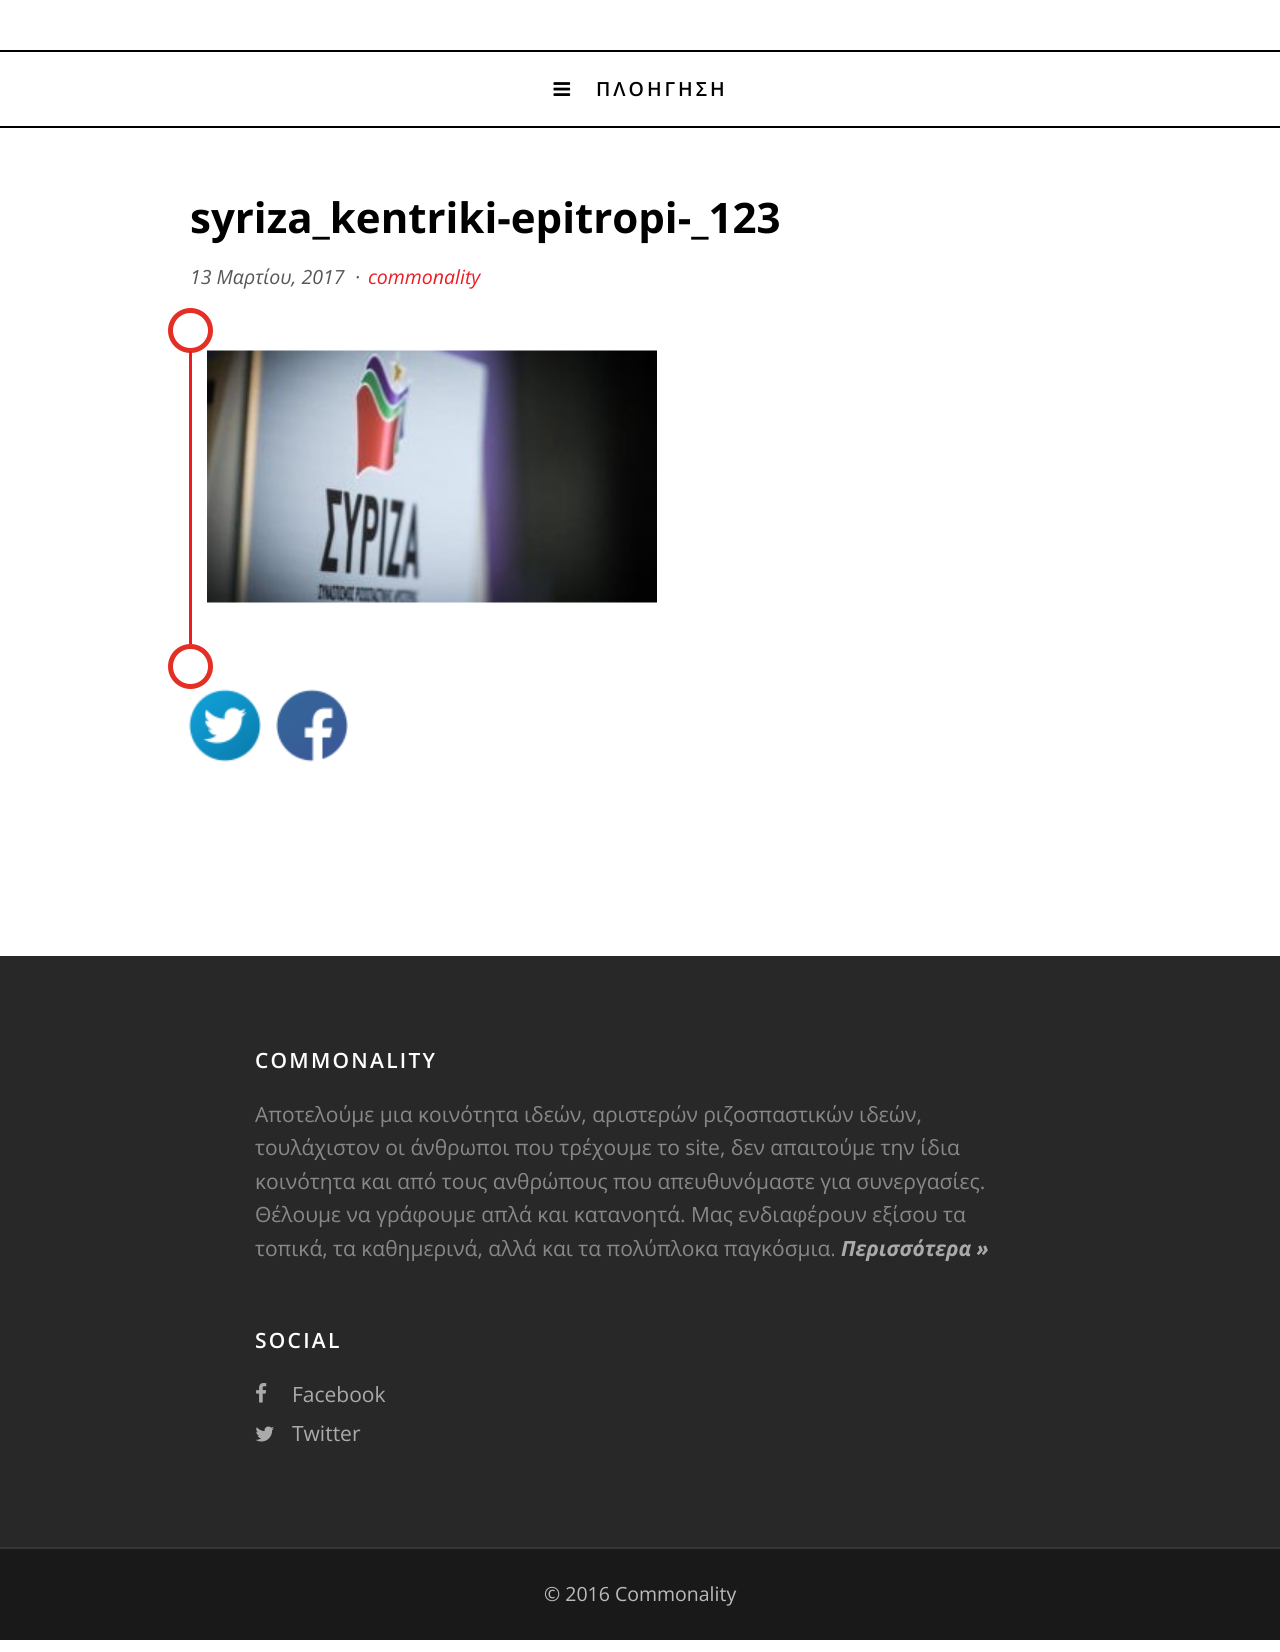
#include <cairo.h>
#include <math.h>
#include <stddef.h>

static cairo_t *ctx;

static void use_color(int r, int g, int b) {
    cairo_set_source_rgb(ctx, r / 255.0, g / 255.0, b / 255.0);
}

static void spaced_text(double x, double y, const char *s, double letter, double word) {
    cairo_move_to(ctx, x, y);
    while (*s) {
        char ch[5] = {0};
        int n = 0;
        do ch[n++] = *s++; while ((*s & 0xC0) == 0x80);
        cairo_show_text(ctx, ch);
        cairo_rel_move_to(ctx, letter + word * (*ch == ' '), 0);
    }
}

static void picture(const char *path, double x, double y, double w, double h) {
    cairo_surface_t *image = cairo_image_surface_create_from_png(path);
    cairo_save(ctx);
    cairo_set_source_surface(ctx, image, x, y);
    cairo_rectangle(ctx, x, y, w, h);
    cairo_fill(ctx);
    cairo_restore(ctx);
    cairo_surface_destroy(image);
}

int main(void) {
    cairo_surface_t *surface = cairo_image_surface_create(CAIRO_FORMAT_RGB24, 1280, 1652);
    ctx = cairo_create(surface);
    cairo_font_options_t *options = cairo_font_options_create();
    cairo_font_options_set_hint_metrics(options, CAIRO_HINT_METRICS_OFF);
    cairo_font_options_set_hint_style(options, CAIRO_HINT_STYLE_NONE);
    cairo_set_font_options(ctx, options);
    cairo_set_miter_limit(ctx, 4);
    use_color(255, 255, 255);
    cairo_paint(ctx);
    use_color(0, 0, 0);
    cairo_rectangle(ctx, 0, 50, 1280, 2);
    cairo_fill(ctx);
    cairo_rectangle(ctx, 0, 126, 1280, 2);
    cairo_fill(ctx);
    picture("img1.png", 553, 82, 18, 14);
    cairo_select_font_face(ctx, "Open Sans SemiBold", CAIRO_FONT_SLANT_NORMAL, CAIRO_FONT_WEIGHT_NORMAL);
    cairo_set_font_size(ctx, 19.5);
    spaced_text(596, 96, "ΠΛΟΗΓΗΣΗ", 3, 0);
    cairo_select_font_face(ctx, "Open Sans", CAIRO_FONT_SLANT_NORMAL, CAIRO_FONT_WEIGHT_BOLD);
    cairo_set_font_size(ctx, 42);
    cairo_move_to(ctx, 190, 233);
    cairo_show_text(ctx, "syriza_kentriki-epitropi-_123");
    cairo_select_font_face(ctx, "Open Sans", CAIRO_FONT_SLANT_ITALIC, CAIRO_FONT_WEIGHT_NORMAL);
    cairo_set_font_size(ctx, 19.5);
    use_color(86, 86, 86);
    cairo_move_to(ctx, 190, 284);
    cairo_show_text(ctx, "13 Μαρτίου, 2017");
    cairo_move_to(ctx, 355, 284);
    cairo_show_text(ctx, "·");
    use_color(237, 28, 36);
    cairo_move_to(ctx, 368, 284);
    cairo_show_text(ctx, "commonality");
    cairo_new_path(ctx);
    cairo_arc(ctx, 190.5, 330.5, 20, 0, 2 * M_PI);
    use_color(229, 47, 37);
    cairo_set_line_width(ctx, 5);
    cairo_stroke(ctx);
    use_color(237, 28, 36);
    cairo_rectangle(ctx, 189, 351, 3, 293);
    cairo_fill(ctx);
    picture("img2.png", 207, 350, 450, 253);
    cairo_arc(ctx, 190.5, 666.5, 20, 0, 2 * M_PI);
    use_color(229, 47, 37);
    cairo_stroke(ctx);
    picture("img3.png", 189, 689, 72, 73);
    picture("img4.png", 276, 689, 72, 73);
    use_color(40, 40, 40);
    cairo_rectangle(ctx, 0, 956, 1280, 591);
    cairo_fill(ctx);
    cairo_select_font_face(ctx, "Open Sans SemiBold", CAIRO_FONT_SLANT_NORMAL, CAIRO_FONT_WEIGHT_NORMAL);
    cairo_set_font_size(ctx, 21);
    use_color(255, 255, 255);
    spaced_text(255, 1068, "COMMONALITY", 2.25, 0);
    cairo_select_font_face(ctx, "Open Sans", CAIRO_FONT_SLANT_NORMAL, CAIRO_FONT_WEIGHT_NORMAL);
    use_color(136, 136, 136);
    cairo_move_to(ctx, 255, 1122);
    cairo_show_text(ctx, "Αποτελούμε μια κοινότητα ιδεών, αριστερών ριζοσπαστικών ιδεών,");
    cairo_move_to(ctx, 255, 1155);
    cairo_show_text(ctx, "τουλάχιστον οι άνθρωποι που τρέχουμε το site, δεν απαιτούμε την ίδια");
    cairo_move_to(ctx, 255, 1189);
    cairo_show_text(ctx, "κοινότητα και από τους ανθρώπους που απευθυνόμαστε για συνεργασίες.");
    cairo_move_to(ctx, 255, 1222);
    cairo_show_text(ctx, "Θέλουμε να γράφουμε απλά και κατανοητά. Μας ενδιαφέρουν εξίσου τα");
    cairo_move_to(ctx, 255, 1256);
    cairo_show_text(ctx, "τοπικά, τα καθημερινά, αλλά και τα πολύπλοκα παγκόσμια.");
    cairo_select_font_face(ctx, "Open Sans", CAIRO_FONT_SLANT_ITALIC, CAIRO_FONT_WEIGHT_BOLD);
    use_color(170, 170, 170);
    cairo_move_to(ctx, 841, 1256);
    cairo_show_text(ctx, "Περισσότερα »");
    cairo_select_font_face(ctx, "Open Sans SemiBold", CAIRO_FONT_SLANT_NORMAL, CAIRO_FONT_WEIGHT_NORMAL);
    use_color(255, 255, 255);
    spaced_text(255, 1348, "SOCIAL", 2.25, 0);
    picture("img5.png", 256, 1383, 11, 20);
    cairo_select_font_face(ctx, "Open Sans", CAIRO_FONT_SLANT_NORMAL, CAIRO_FONT_WEIGHT_NORMAL);
    use_color(170, 170, 170);
    cairo_move_to(ctx, 292, 1402);
    cairo_show_text(ctx, "Facebook");
    picture("img6.png", 255, 1426, 19, 16);
    cairo_move_to(ctx, 292, 1441);
    cairo_show_text(ctx, "Twitter");
    use_color(25, 25, 25);
    cairo_rectangle(ctx, 0, 1549, 1280, 91);
    cairo_fill(ctx);
    use_color(53, 53, 53);
    cairo_rectangle(ctx, 0, 1547, 1280, 2);
    cairo_fill(ctx);
    cairo_set_font_size(ctx, 19.5);
    use_color(187, 187, 187);
    cairo_move_to(ctx, 544, 1601);
    cairo_show_text(ctx, "© 2016 Commonality");
    cairo_surface_write_to_png(surface, "result.png");
    cairo_font_options_destroy(options);
    cairo_destroy(ctx);
    cairo_surface_destroy(surface);
    return 0;
}
